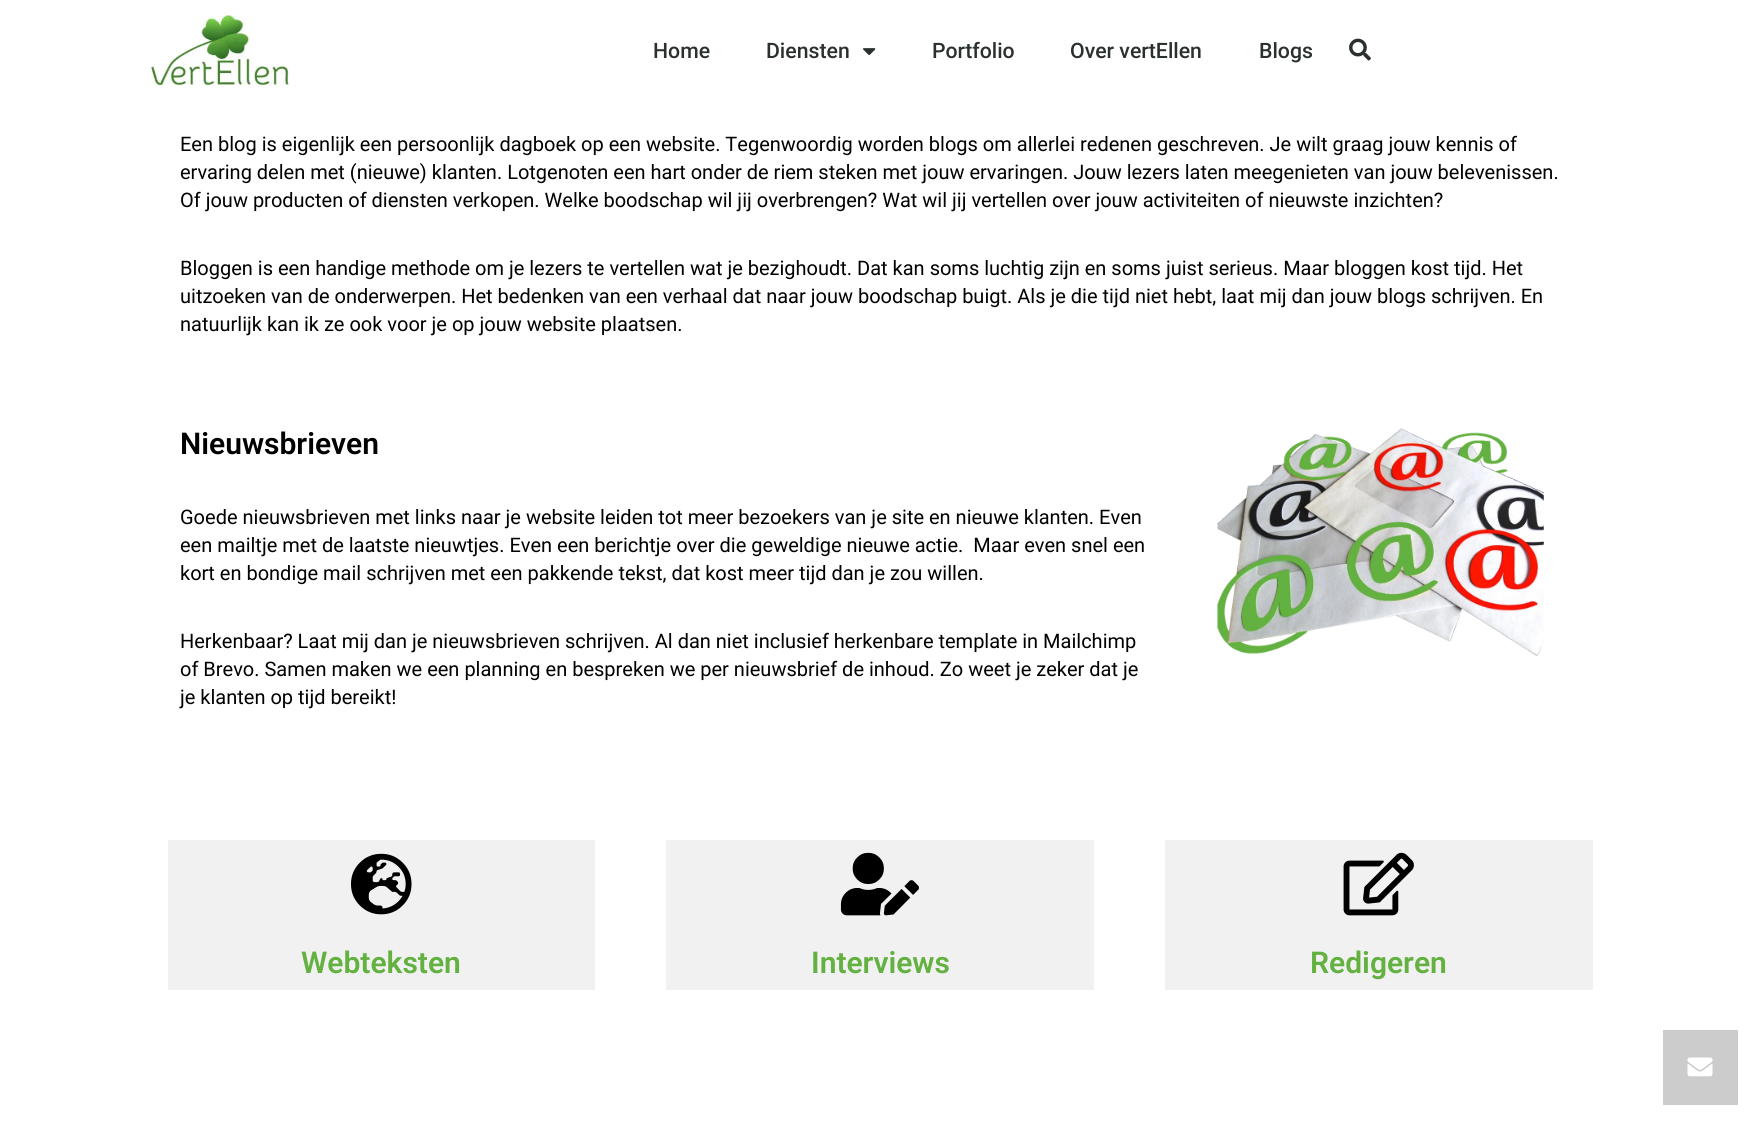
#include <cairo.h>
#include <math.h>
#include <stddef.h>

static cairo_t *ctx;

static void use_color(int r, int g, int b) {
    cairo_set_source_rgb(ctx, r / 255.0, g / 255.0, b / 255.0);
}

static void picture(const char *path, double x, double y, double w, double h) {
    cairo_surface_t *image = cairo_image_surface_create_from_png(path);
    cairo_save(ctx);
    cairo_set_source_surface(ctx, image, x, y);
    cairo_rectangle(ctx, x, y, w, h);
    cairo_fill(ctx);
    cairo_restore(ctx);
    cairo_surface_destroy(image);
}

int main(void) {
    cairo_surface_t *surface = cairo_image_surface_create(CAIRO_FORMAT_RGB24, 1759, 1127);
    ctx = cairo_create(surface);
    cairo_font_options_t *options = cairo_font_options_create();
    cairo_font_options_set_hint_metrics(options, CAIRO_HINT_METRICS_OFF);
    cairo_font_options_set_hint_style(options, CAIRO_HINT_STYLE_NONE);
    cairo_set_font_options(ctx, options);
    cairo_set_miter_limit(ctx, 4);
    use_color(255, 255, 255);
    cairo_paint(ctx);
    picture("img1.png", 151, 15, 138, 71);
    cairo_select_font_face(ctx, "Roboto Medium", CAIRO_FONT_SLANT_NORMAL, CAIRO_FONT_WEIGHT_NORMAL);
    cairo_set_font_size(ctx, 21.25);
    use_color(42, 48, 47);
    cairo_move_to(ctx, 653, 58);
    cairo_show_text(ctx, "Home");
    cairo_move_to(ctx, 766, 58);
    cairo_show_text(ctx, "Diensten");
    picture("img2.png", 863, 48, 13, 8);
    cairo_move_to(ctx, 932, 58);
    cairo_show_text(ctx, "Portfolio");
    cairo_move_to(ctx, 1070, 58);
    cairo_show_text(ctx, "Over vertEllen");
    cairo_move_to(ctx, 1259, 58);
    cairo_show_text(ctx, "Blogs");
    picture("img3.png", 1349, 38, 22, 23);
    cairo_select_font_face(ctx, "Roboto", CAIRO_FONT_SLANT_NORMAL, CAIRO_FONT_WEIGHT_NORMAL);
    cairo_set_font_size(ctx, 20);
    use_color(0, 0, 0);
    cairo_move_to(ctx, 180, 151);
    cairo_show_text(ctx, "Een blog is eigenlijk een persoonlijk dagboek op een website. Tegenwoordig worden blogs om allerlei redenen geschreven. Je wilt graag jouw kennis of");
    cairo_move_to(ctx, 180, 179);
    cairo_show_text(ctx, "ervaring delen met (nieuwe) klanten. Lotgenoten een hart onder de riem steken met jouw ervaringen. Jouw lezers laten meegenieten van jouw belevenissen.");
    cairo_move_to(ctx, 180, 207);
    cairo_show_text(ctx, "Of jouw producten of diensten verkopen. Welke boodschap wil jij overbrengen? Wat wil jij vertellen over jouw activiteiten of nieuwste inzichten?");
    cairo_move_to(ctx, 180, 275);
    cairo_show_text(ctx, "Bloggen is een handige methode om je lezers te vertellen wat je bezighoudt. Dat kan soms luchtig zijn en soms juist serieus. Maar bloggen kost tijd. Het");
    cairo_move_to(ctx, 180, 303);
    cairo_show_text(ctx, "uitzoeken van de onderwerpen. Het bedenken van een verhaal dat naar jouw boodschap buigt. Als je die tijd niet hebt, laat mij dan jouw blogs schrijven. En");
    cairo_move_to(ctx, 180, 331);
    cairo_show_text(ctx, "natuurlijk kan ik ze ook voor je op jouw website plaatsen.");
    cairo_select_font_face(ctx, "Roboto SemiBold", CAIRO_FONT_SLANT_NORMAL, CAIRO_FONT_WEIGHT_NORMAL);
    cairo_set_font_size(ctx, 30);
    cairo_move_to(ctx, 180, 454);
    cairo_show_text(ctx, "Nieuwsbrieven");
    cairo_select_font_face(ctx, "Roboto", CAIRO_FONT_SLANT_NORMAL, CAIRO_FONT_WEIGHT_NORMAL);
    cairo_set_font_size(ctx, 20);
    cairo_move_to(ctx, 180, 524);
    cairo_show_text(ctx, "Goede nieuwsbrieven met links naar je website leiden tot meer bezoekers van je site en nieuwe klanten. Even");
    cairo_move_to(ctx, 180, 552);
    cairo_show_text(ctx, "een mailtje met de laatste nieuwtjes. Even een berichtje over die geweldige nieuwe actie.  Maar even snel een");
    cairo_move_to(ctx, 180, 580);
    cairo_show_text(ctx, "kort en bondige mail schrijven met een pakkende tekst, dat kost meer tijd dan je zou willen.");
    cairo_move_to(ctx, 180, 648);
    cairo_show_text(ctx, "Herkenbaar? Laat mij dan je nieuwsbrieven schrijven. Al dan niet inclusief herkenbare template in Mailchimp");
    cairo_move_to(ctx, 180, 676);
    cairo_show_text(ctx, "of Brevo. Samen maken we een planning en bespreken we per nieuwsbrief de inhoud. Zo weet je zeker dat je");
    cairo_move_to(ctx, 180, 704);
    cairo_show_text(ctx, "je klanten op tijd bereikt!");
    picture("img4.png", 1217, 428, 327, 228);
    use_color(241, 241, 241);
    cairo_rectangle(ctx, 168, 840, 427, 150);
    cairo_fill(ctx);
    picture("img5.png", 351, 853, 61, 62);
    cairo_select_font_face(ctx, "Roboto SemiBold", CAIRO_FONT_SLANT_NORMAL, CAIRO_FONT_WEIGHT_NORMAL);
    cairo_set_font_size(ctx, 30);
    use_color(99, 177, 65);
    cairo_move_to(ctx, 301, 973);
    cairo_show_text(ctx, "Webteksten");
    use_color(241, 241, 241);
    cairo_rectangle(ctx, 666, 840, 428, 150);
    cairo_fill(ctx);
    picture("img6.png", 840, 852, 79, 64);
    use_color(99, 177, 65);
    cairo_move_to(ctx, 811, 973);
    cairo_show_text(ctx, "Interviews");
    use_color(241, 241, 241);
    cairo_rectangle(ctx, 1165, 840, 428, 150);
    cairo_fill(ctx);
    picture("img7.png", 1343, 852, 71, 64);
    use_color(99, 177, 65);
    cairo_move_to(ctx, 1310, 973);
    cairo_show_text(ctx, "Redigeren");
    use_color(204, 204, 204);
    cairo_rectangle(ctx, 1663, 1030, 75, 75);
    cairo_fill(ctx);
    picture("img8.png", 1687, 1057, 26, 20);
    cairo_surface_write_to_png(surface, "result.png");
    cairo_font_options_destroy(options);
    cairo_destroy(ctx);
    cairo_surface_destroy(surface);
    return 0;
}
